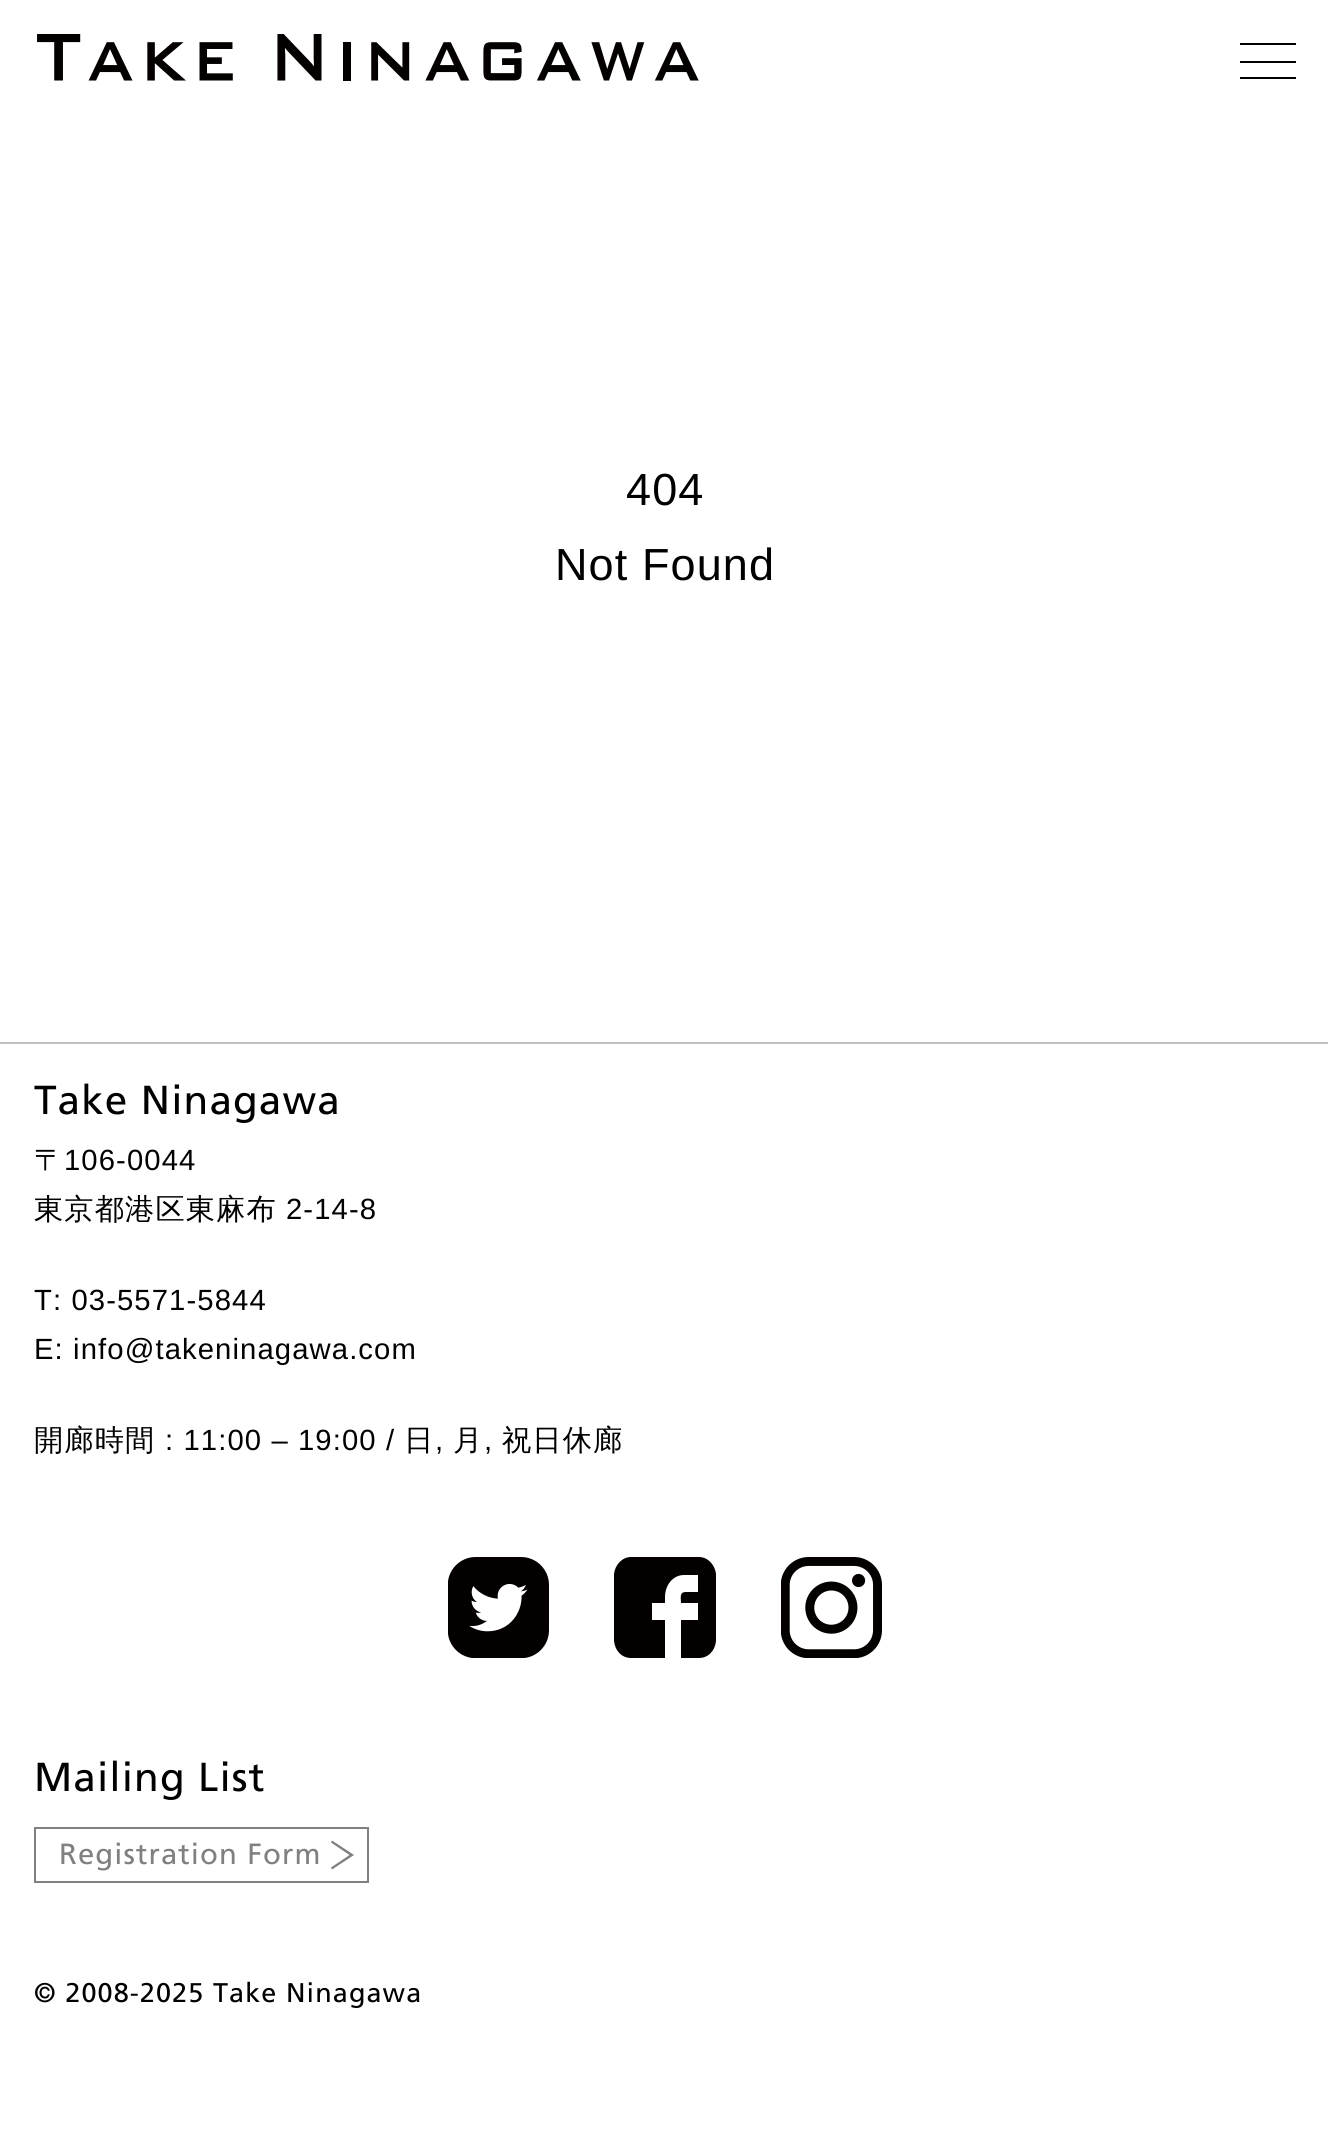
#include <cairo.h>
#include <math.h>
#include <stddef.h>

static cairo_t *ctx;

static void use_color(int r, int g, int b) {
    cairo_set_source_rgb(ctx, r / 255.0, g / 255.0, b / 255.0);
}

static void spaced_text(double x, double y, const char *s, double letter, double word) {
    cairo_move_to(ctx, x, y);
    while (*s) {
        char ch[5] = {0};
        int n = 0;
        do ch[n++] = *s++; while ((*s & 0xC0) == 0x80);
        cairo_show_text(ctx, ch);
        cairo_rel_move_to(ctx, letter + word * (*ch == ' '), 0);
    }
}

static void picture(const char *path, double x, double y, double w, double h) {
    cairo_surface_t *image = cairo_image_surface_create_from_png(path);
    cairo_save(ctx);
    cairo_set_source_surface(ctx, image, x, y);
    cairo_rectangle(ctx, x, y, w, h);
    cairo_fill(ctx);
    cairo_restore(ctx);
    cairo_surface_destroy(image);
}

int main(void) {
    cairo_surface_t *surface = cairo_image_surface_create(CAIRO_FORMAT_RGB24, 1328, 2139);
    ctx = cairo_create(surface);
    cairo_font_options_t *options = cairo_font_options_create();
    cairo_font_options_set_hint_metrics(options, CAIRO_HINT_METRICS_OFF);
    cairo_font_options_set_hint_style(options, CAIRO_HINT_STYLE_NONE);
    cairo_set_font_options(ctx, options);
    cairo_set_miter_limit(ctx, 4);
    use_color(255, 255, 255);
    cairo_paint(ctx);
    picture("img1.png", 37, 34, 662, 47);
    use_color(0, 0, 0);
    cairo_rectangle(ctx, 1240, 43, 56, 2);
    cairo_fill(ctx);
    cairo_rectangle(ctx, 1240, 61, 56, 2);
    cairo_fill(ctx);
    cairo_rectangle(ctx, 1240, 77, 56, 2);
    cairo_fill(ctx);
    cairo_select_font_face(ctx, "Liberation Sans", CAIRO_FONT_SLANT_NORMAL, CAIRO_FONT_WEIGHT_NORMAL);
    cairo_set_font_size(ctx, 45);
    spaced_text(626, 505, "404", 1.1, 0);
    spaced_text(555, 580, "Not Found", 1.1, 0);
    use_color(194, 194, 194);
    cairo_rectangle(ctx, 0, 1042, 1328, 2);
    cairo_fill(ctx);
    cairo_select_font_face(ctx, "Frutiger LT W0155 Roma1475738", CAIRO_FONT_SLANT_NORMAL, CAIRO_FONT_WEIGHT_NORMAL);
    cairo_set_font_size(ctx, 40.5);
    use_color(0, 0, 0);
    spaced_text(34, 1114, "Take Ninagawa", 1.1, 0);
    cairo_select_font_face(ctx, "WenQuanYi Zen Hei Medium", CAIRO_FONT_SLANT_NORMAL, CAIRO_FONT_WEIGHT_NORMAL);
    cairo_set_font_size(ctx, 29.25);
    spaced_text(34, 1170, "〒", 1.1, 0);
    cairo_select_font_face(ctx, "Liberation Sans", CAIRO_FONT_SLANT_NORMAL, CAIRO_FONT_WEIGHT_NORMAL);
    spaced_text(64, 1170, "106-0044", 1.1, 0);
    cairo_select_font_face(ctx, "WenQuanYi Zen Hei Medium", CAIRO_FONT_SLANT_NORMAL, CAIRO_FONT_WEIGHT_NORMAL);
    spaced_text(34, 1219, "東京都港区東麻布", 1.1, 0);
    cairo_select_font_face(ctx, "Liberation Sans", CAIRO_FONT_SLANT_NORMAL, CAIRO_FONT_WEIGHT_NORMAL);
    spaced_text(286, 1219, "2-14-8", 1.1, 0);
    spaced_text(34, 1310, "T: 03-5571-5844", 1.1, 0);
    spaced_text(34, 1359, "E: info@takeninagawa.com", 1.1, 0);
    cairo_select_font_face(ctx, "WenQuanYi Zen Hei Medium", CAIRO_FONT_SLANT_NORMAL, CAIRO_FONT_WEIGHT_NORMAL);
    spaced_text(34, 1450, "開廊時間", 1.1, 0);
    cairo_select_font_face(ctx, "Liberation Sans", CAIRO_FONT_SLANT_NORMAL, CAIRO_FONT_WEIGHT_NORMAL);
    spaced_text(165, 1450, ": 11:00 – 19:00 /", 1.1, 0);
    cairo_select_font_face(ctx, "WenQuanYi Zen Hei Medium", CAIRO_FONT_SLANT_NORMAL, CAIRO_FONT_WEIGHT_NORMAL);
    spaced_text(404, 1450, "日", 1.1, 0);
    cairo_select_font_face(ctx, "Liberation Sans", CAIRO_FONT_SLANT_NORMAL, CAIRO_FONT_WEIGHT_NORMAL);
    spaced_text(435, 1450, ",", 1.1, 0);
    cairo_select_font_face(ctx, "WenQuanYi Zen Hei Medium", CAIRO_FONT_SLANT_NORMAL, CAIRO_FONT_WEIGHT_NORMAL);
    spaced_text(453, 1450, "月", 1.1, 0);
    cairo_select_font_face(ctx, "Liberation Sans", CAIRO_FONT_SLANT_NORMAL, CAIRO_FONT_WEIGHT_NORMAL);
    spaced_text(484, 1450, ",", 1.1, 0);
    cairo_select_font_face(ctx, "WenQuanYi Zen Hei Medium", CAIRO_FONT_SLANT_NORMAL, CAIRO_FONT_WEIGHT_NORMAL);
    spaced_text(502, 1450, "祝日休廊", 1.1, 0);
    picture("img2.png", 448, 1557, 101, 101);
    use_color(4, 0, 0);
    cairo_new_path(ctx);
    cairo_move_to(ctx, 716, 1574);
    cairo_curve_to(ctx, 715, 1565, 708, 1557, 699, 1557);
    cairo_line_to(ctx, 631, 1557);
    cairo_curve_to(ctx, 622, 1557, 615, 1565, 614, 1574);
    cairo_line_to(ctx, 614, 1641);
    cairo_curve_to(ctx, 615, 1651, 622, 1658, 631, 1658);
    cairo_line_to(ctx, 665, 1658);
    cairo_line_to(ctx, 665, 1620);
    cairo_line_to(ctx, 652, 1620);
    cairo_line_to(ctx, 652, 1603);
    cairo_line_to(ctx, 665, 1603);
    cairo_line_to(ctx, 665, 1597);
    cairo_curve_to(ctx, 665, 1585, 673, 1575, 684, 1575);
    cairo_line_to(ctx, 698, 1575);
    cairo_line_to(ctx, 698, 1592);
    cairo_line_to(ctx, 686, 1592);
    cairo_curve_to(ctx, 679, 1592, 681, 1598, 681, 1603);
    cairo_line_to(ctx, 698, 1603);
    cairo_line_to(ctx, 698, 1620);
    cairo_line_to(ctx, 681, 1620);
    cairo_line_to(ctx, 681, 1658);
    cairo_line_to(ctx, 699, 1658);
    cairo_curve_to(ctx, 708, 1658, 715, 1651, 716, 1641);
    cairo_close_path(ctx);
    cairo_fill(ctx);
    picture("img3.png", 781, 1557, 101, 101);
    cairo_select_font_face(ctx, "Frutiger LT W0155 Roma1475738", CAIRO_FONT_SLANT_NORMAL, CAIRO_FONT_WEIGHT_NORMAL);
    cairo_set_font_size(ctx, 40.5);
    use_color(0, 0, 0);
    spaced_text(34, 1791, "Mailing List", 1.1, 0);
    use_color(128, 128, 128);
    cairo_new_path(ctx);
    cairo_move_to(ctx, 332, 1869.5);
    cairo_line_to(ctx, 331, 1867.5);
    cairo_line_to(ctx, 349.5, 1855);
    cairo_line_to(ctx, 331, 1842.5);
    cairo_line_to(ctx, 332, 1840.5);
    cairo_line_to(ctx, 354, 1855);
    cairo_close_path(ctx);
    cairo_fill(ctx);
    cairo_rectangle(ctx, 35, 1828, 333, 54);
    cairo_stroke(ctx);
    cairo_set_font_size(ctx, 29.25);
    spaced_text(59, 1864, "Registration Form", 1.1, 0);
    cairo_set_font_size(ctx, 27);
    use_color(0, 0, 0);
    spaced_text(34, 2002, "© 2008-2025 Take Ninagawa", 1.1, 0);
    cairo_surface_write_to_png(surface, "result.png");
    cairo_font_options_destroy(options);
    cairo_destroy(ctx);
    cairo_surface_destroy(surface);
    return 0;
}
